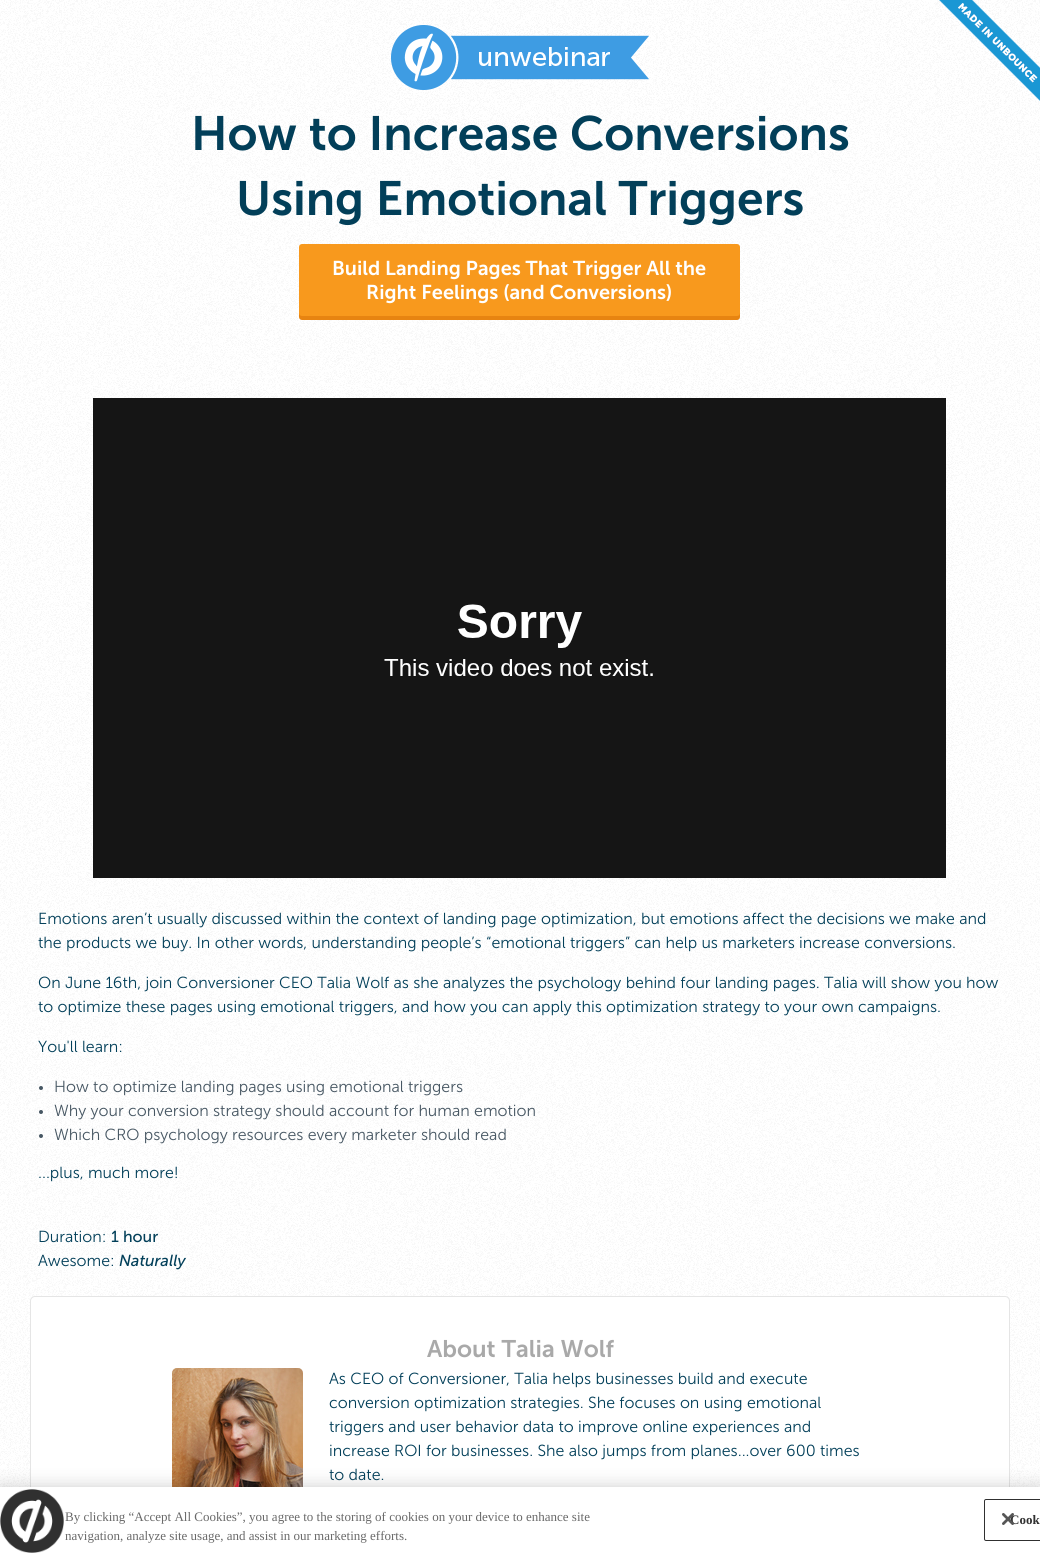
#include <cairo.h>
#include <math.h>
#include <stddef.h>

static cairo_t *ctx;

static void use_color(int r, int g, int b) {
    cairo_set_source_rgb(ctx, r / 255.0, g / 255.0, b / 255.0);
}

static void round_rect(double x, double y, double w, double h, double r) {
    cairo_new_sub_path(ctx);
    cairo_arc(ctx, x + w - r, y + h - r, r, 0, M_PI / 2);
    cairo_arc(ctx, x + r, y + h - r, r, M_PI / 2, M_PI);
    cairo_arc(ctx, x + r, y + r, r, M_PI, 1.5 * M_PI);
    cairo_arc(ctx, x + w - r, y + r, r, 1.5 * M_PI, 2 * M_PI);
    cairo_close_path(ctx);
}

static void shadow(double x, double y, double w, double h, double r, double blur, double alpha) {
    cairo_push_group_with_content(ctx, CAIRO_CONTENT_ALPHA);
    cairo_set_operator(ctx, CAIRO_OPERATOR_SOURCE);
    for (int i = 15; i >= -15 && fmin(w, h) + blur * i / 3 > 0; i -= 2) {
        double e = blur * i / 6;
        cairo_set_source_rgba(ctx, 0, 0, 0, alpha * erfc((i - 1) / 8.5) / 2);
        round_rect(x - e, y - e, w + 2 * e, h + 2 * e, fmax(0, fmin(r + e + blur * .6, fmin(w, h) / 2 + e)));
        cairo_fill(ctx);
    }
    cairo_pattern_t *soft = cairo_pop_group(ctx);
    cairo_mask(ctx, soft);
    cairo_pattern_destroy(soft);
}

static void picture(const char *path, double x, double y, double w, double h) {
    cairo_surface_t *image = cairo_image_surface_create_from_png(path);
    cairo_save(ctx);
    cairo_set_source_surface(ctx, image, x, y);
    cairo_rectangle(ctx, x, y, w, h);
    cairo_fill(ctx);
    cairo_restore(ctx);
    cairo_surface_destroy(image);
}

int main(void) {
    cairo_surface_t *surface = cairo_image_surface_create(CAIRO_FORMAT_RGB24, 1040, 1556);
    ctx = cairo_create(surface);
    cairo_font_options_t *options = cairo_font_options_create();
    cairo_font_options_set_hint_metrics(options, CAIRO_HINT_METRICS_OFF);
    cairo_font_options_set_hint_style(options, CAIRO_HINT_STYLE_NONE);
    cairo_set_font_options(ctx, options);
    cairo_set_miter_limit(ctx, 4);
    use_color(255, 255, 255);
    cairo_paint(ctx);
    picture("img1.png", 0, 0, 1040, 1487);
    picture("img2.png", 391, 25, 258, 65);
    picture("img3.png", 939, 0, 101, 101);
    cairo_select_font_face(ctx, "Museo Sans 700 SemiBold", CAIRO_FONT_SLANT_NORMAL, CAIRO_FONT_WEIGHT_NORMAL);
    cairo_set_font_size(ctx, 48);
    use_color(2, 63, 89);
    cairo_move_to(ctx, 191, 150);
    cairo_show_text(ctx, "How to Increase Conversions");
    cairo_move_to(ctx, 236, 215);
    cairo_show_text(ctx, "Using Emotional Triggers");
    use_color(231, 132, 17);
    round_rect(299, 308, 441, 12, 3);
    cairo_fill(ctx);
    use_color(248, 153, 29);
    round_rect(299, 244, 441, 72, 3);
    cairo_fill(ctx);
    cairo_set_font_size(ctx, 20);
    use_color(255, 255, 255);
    cairo_move_to(ctx, 332, 275);
    cairo_show_text(ctx, "Build Landing Pages That Trigger All the");
    cairo_move_to(ctx, 366, 299);
    cairo_show_text(ctx, "Right Feelings (and Conversions)");
    picture("img4.png", 93, 398, 853, 480);
    cairo_select_font_face(ctx, "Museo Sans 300 Light", CAIRO_FONT_SLANT_NORMAL, CAIRO_FONT_WEIGHT_NORMAL);
    cairo_set_font_size(ctx, 16);
    use_color(2, 63, 89);
    cairo_move_to(ctx, 38, 924);
    cairo_show_text(ctx, "Emotions aren’t usually discussed within the context of landing page optimization, but emotions affect the decisions we make and");
    cairo_move_to(ctx, 38, 948);
    cairo_show_text(ctx, "the products we buy. In other words, understanding people’s “emotional triggers” can help us marketers increase conversions.");
    cairo_move_to(ctx, 38, 988);
    cairo_show_text(ctx, "On June 16th, join Conversioner CEO Talia Wolf as she analyzes the psychology behind four landing pages. Talia will show you how");
    cairo_move_to(ctx, 38, 1012);
    cairo_show_text(ctx, "to optimize these pages using emotional triggers, and how you can apply this optimization strategy to your own campaigns.");
    cairo_move_to(ctx, 38, 1052);
    cairo_show_text(ctx, "You'll learn:");
    use_color(71, 87, 99);
    cairo_new_path(ctx);
    cairo_arc(ctx, 41, 1088, 2, 0, 2 * M_PI);
    cairo_fill(ctx);
    cairo_move_to(ctx, 54, 1092);
    cairo_show_text(ctx, "How to optimize landing pages using emotional triggers");
    cairo_new_path(ctx);
    cairo_arc(ctx, 41, 1112, 2, 0, 2 * M_PI);
    cairo_fill(ctx);
    cairo_move_to(ctx, 54, 1116);
    cairo_show_text(ctx, "Why your conversion strategy should account for human emotion");
    cairo_new_path(ctx);
    cairo_arc(ctx, 41, 1136, 2, 0, 2 * M_PI);
    cairo_fill(ctx);
    cairo_move_to(ctx, 54, 1140);
    cairo_show_text(ctx, "Which CRO psychology resources every marketer should read");
    use_color(2, 63, 89);
    cairo_move_to(ctx, 38, 1178);
    cairo_show_text(ctx, "...plus, much more!");
    cairo_move_to(ctx, 38, 1242);
    cairo_show_text(ctx, "Duration:");
    cairo_select_font_face(ctx, "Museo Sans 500", CAIRO_FONT_SLANT_NORMAL, CAIRO_FONT_WEIGHT_NORMAL);
    cairo_move_to(ctx, 111, 1242);
    cairo_show_text(ctx, "1 hour");
    cairo_select_font_face(ctx, "Museo Sans 300 Light", CAIRO_FONT_SLANT_NORMAL, CAIRO_FONT_WEIGHT_NORMAL);
    cairo_move_to(ctx, 38, 1266);
    cairo_show_text(ctx, "Awesome:");
    cairo_select_font_face(ctx, "Museo Sans 500", CAIRO_FONT_SLANT_ITALIC, CAIRO_FONT_WEIGHT_NORMAL);
    cairo_move_to(ctx, 119, 1266);
    cairo_show_text(ctx, "Naturally");
    use_color(255, 255, 255);
    round_rect(30.5, 1296.5, 979, 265, 4.5);
    cairo_fill_preserve(ctx);
    use_color(229, 229, 229);
    cairo_set_line_width(ctx, 1);
    cairo_stroke(ctx);
    cairo_select_font_face(ctx, "Museo Sans 700 SemiBold", CAIRO_FONT_SLANT_NORMAL, CAIRO_FONT_WEIGHT_NORMAL);
    cairo_set_font_size(ctx, 24);
    use_color(169, 169, 169);
    cairo_move_to(ctx, 427, 1357);
    cairo_show_text(ctx, "About Talia Wolf");
    picture("img5.png", 172, 1368, 131, 119);
    cairo_select_font_face(ctx, "Museo Sans 300 Light", CAIRO_FONT_SLANT_NORMAL, CAIRO_FONT_WEIGHT_NORMAL);
    cairo_set_font_size(ctx, 16);
    use_color(2, 63, 89);
    cairo_move_to(ctx, 329, 1384);
    cairo_show_text(ctx, "As CEO of Conversioner, Talia helps businesses build and execute");
    cairo_move_to(ctx, 329, 1408);
    cairo_show_text(ctx, "conversion optimization strategies. She focuses on using emotional");
    cairo_move_to(ctx, 329, 1432);
    cairo_show_text(ctx, "triggers and user behavior data to improve online experiences and");
    cairo_move_to(ctx, 329, 1456);
    cairo_show_text(ctx, "increase ROI for businesses. She also jumps from planes...over 600 times");
    cairo_move_to(ctx, 329, 1480);
    cairo_show_text(ctx, "to date.");
    use_color(0, 0, 0);
    shadow(0, 1487, 1040, 69, 0, 9, 0.2);
    use_color(255, 255, 255);
    cairo_rectangle(ctx, 0, 1487, 1040, 69);
    cairo_fill(ctx);
    picture("img6.png", 0, 1489, 64, 64);
    cairo_select_font_face(ctx, "Liberation Serif", CAIRO_FONT_SLANT_NORMAL, CAIRO_FONT_WEIGHT_NORMAL);
    cairo_set_font_size(ctx, 13);
    use_color(105, 105, 105);
    cairo_move_to(ctx, 65, 1521);
    cairo_show_text(ctx, "By clicking “Accept All Cookies”, you agree to the storing of cookies on your device to enhance site");
    cairo_move_to(ctx, 65, 1540);
    cairo_show_text(ctx, "navigation, analyze site usage, and assist in our marketing efforts.");
    round_rect(984.5, 1499.5, 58, 41, 1.5);
    use_color(48, 48, 48);
    cairo_stroke(ctx);
    cairo_select_font_face(ctx, "Liberation Serif", CAIRO_FONT_SLANT_NORMAL, CAIRO_FONT_WEIGHT_BOLD);
    cairo_move_to(ctx, 1010, 1524);
    cairo_show_text(ctx, "Cook");
    picture("img7.png", 1002, 1513, 12, 12);
    cairo_surface_write_to_png(surface, "result.png");
    cairo_font_options_destroy(options);
    cairo_destroy(ctx);
    cairo_surface_destroy(surface);
    return 0;
}
